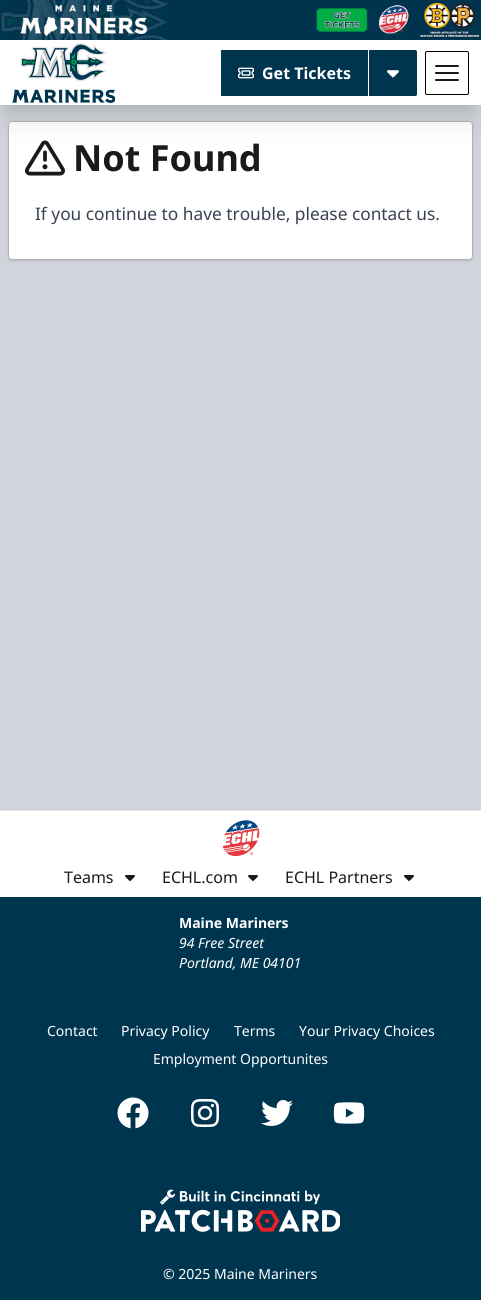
#include <cairo.h>
#include <math.h>
#include <stddef.h>

static cairo_t *ctx;

static void use_color(int r, int g, int b) {
    cairo_set_source_rgb(ctx, r / 255.0, g / 255.0, b / 255.0);
}

static void round_rect(double x, double y, double w, double h, double r) {
    cairo_new_sub_path(ctx);
    cairo_arc(ctx, x + w - r, y + h - r, r, 0, M_PI / 2);
    cairo_arc(ctx, x + r, y + h - r, r, M_PI / 2, M_PI);
    cairo_arc(ctx, x + r, y + r, r, M_PI, 1.5 * M_PI);
    cairo_arc(ctx, x + w - r, y + r, r, 1.5 * M_PI, 2 * M_PI);
    cairo_close_path(ctx);
}

static void shadow(double x, double y, double w, double h, double r, double blur, double alpha) {
    cairo_push_group_with_content(ctx, CAIRO_CONTENT_ALPHA);
    cairo_set_operator(ctx, CAIRO_OPERATOR_SOURCE);
    for (int i = 15; i >= -15 && fmin(w, h) + blur * i / 3 > 0; i -= 2) {
        double e = blur * i / 6;
        cairo_set_source_rgba(ctx, 0, 0, 0, alpha * erfc((i - 1) / 8.5) / 2);
        round_rect(x - e, y - e, w + 2 * e, h + 2 * e, fmax(0, fmin(r + e + blur * .6, fmin(w, h) / 2 + e)));
        cairo_fill(ctx);
    }
    cairo_pattern_t *soft = cairo_pop_group(ctx);
    cairo_mask(ctx, soft);
    cairo_pattern_destroy(soft);
}

static void picture(const char *path, double x, double y, double w, double h) {
    cairo_surface_t *image = cairo_image_surface_create_from_png(path);
    cairo_save(ctx);
    cairo_set_source_surface(ctx, image, x, y);
    cairo_rectangle(ctx, x, y, w, h);
    cairo_fill(ctx);
    cairo_restore(ctx);
    cairo_surface_destroy(image);
}

int main(void) {
    cairo_surface_t *surface = cairo_image_surface_create(CAIRO_FORMAT_RGB24, 481, 1300);
    ctx = cairo_create(surface);
    cairo_font_options_t *options = cairo_font_options_create();
    cairo_font_options_set_hint_metrics(options, CAIRO_HINT_METRICS_OFF);
    cairo_font_options_set_hint_style(options, CAIRO_HINT_STYLE_NONE);
    cairo_set_font_options(ctx, options);
    cairo_set_miter_limit(ctx, 4);
    use_color(209, 213, 219);
    cairo_paint(ctx);
    use_color(0, 53, 79);
    cairo_rectangle(ctx, 0, 0, 1, 40);
    cairo_fill(ctx);
    picture("img1.png", 1, 0, 480, 40);
    use_color(0, 0, 0);
    shadow(9, 123, 463, 137, 3, 1, 0.1);
    shadow(8, 122, 465, 139, 4, 1.5, 0.1);
    use_color(255, 255, 255);
    round_rect(8, 121, 465, 139, 4);
    cairo_fill(ctx);
    round_rect(8.5, 121.5, 464, 138, 3.5);
    cairo_set_source_rgba(ctx, 0, 0, 0, 0.3);
    cairo_set_line_width(ctx, 1);
    cairo_stroke(ctx);
    use_color(0, 0, 0);
    shadow(6, 54, 469, 53, 0, 5, 0.1);
    picture("img5.png", 25, 140, 40, 36);
    shadow(5, 65, 471, 55, 0, 12.5, 0.1);
    use_color(255, 255, 255);
    cairo_rectangle(ctx, 0, 40, 481, 65);
    cairo_fill(ctx);
    picture("img2.png", 12, 43, 103, 60);
    use_color(0, 53, 79);
    cairo_rectangle(ctx, 221, 50, 147, 46);
    cairo_fill(ctx);
    picture("img3.png", 238, 67, 16, 12);
    cairo_select_font_face(ctx, "Noto Sans", CAIRO_FONT_SLANT_NORMAL, CAIRO_FONT_WEIGHT_BOLD);
    cairo_set_font_size(ctx, 16);
    use_color(255, 255, 255);
    cairo_move_to(ctx, 262, 79);
    cairo_show_text(ctx, "Get Tickets");
    use_color(0, 53, 79);
    cairo_new_path(ctx);
    cairo_move_to(ctx, 369.5, 50.5);
    cairo_line_to(ctx, 415, 50.5);
    cairo_curve_to(ctx, 416, 50.5, 416.5, 51, 416.5, 52);
    cairo_line_to(ctx, 416.5, 94);
    cairo_curve_to(ctx, 416.5, 95, 416, 95.5, 415, 95.5);
    cairo_line_to(ctx, 369.5, 95.5);
    cairo_close_path(ctx);
    cairo_fill_preserve(ctx);
    cairo_stroke(ctx);
    picture("img4.png", 387, 70, 12, 8);
    round_rect(425.5, 51.5, 43, 43, 1.5);
    use_color(0, 0, 0);
    cairo_stroke(ctx);
    cairo_new_path(ctx);
    cairo_move_to(ctx, 436, 66);
    cairo_line_to(ctx, 458, 66);
    cairo_move_to(ctx, 436, 73);
    cairo_line_to(ctx, 458, 73);
    cairo_move_to(ctx, 436, 80);
    cairo_line_to(ctx, 458, 80);
    use_color(26, 26, 26);
    cairo_set_line_width(ctx, 2);
    cairo_set_line_cap(ctx, CAIRO_LINE_CAP_ROUND);
    cairo_set_line_join(ctx, CAIRO_LINE_JOIN_ROUND);
    cairo_stroke(ctx);
    cairo_set_font_size(ctx, 36);
    cairo_move_to(ctx, 73, 171);
    cairo_show_text(ctx, "Not Found");
    cairo_select_font_face(ctx, "Noto Sans", CAIRO_FONT_SLANT_NORMAL, CAIRO_FONT_WEIGHT_NORMAL);
    cairo_set_font_size(ctx, 17.3);
    use_color(55, 65, 81);
    cairo_move_to(ctx, 35, 220);
    cairo_show_text(ctx, "If you continue to have trouble, please contact us.");
    use_color(255, 255, 255);
    cairo_rectangle(ctx, 0, 811, 481, 86);
    cairo_fill(ctx);
    use_color(229, 231, 235);
    cairo_rectangle(ctx, 0, 810, 481, 1);
    cairo_fill(ctx);
    picture("img6.png", 222, 820, 38, 37);
    cairo_set_font_size(ctx, 16);
    use_color(26, 26, 26);
    cairo_move_to(ctx, 64, 883);
    cairo_show_text(ctx, "Teams");
    picture("img7.png", 125, 875, 10, 6);
    cairo_move_to(ctx, 162, 883);
    cairo_show_text(ctx, "ECHL.com");
    picture("img7.png", 248, 875, 10, 6);
    cairo_move_to(ctx, 285, 883);
    cairo_show_text(ctx, "ECHL Partners");
    picture("img7.png", 404, 875, 10, 6);
    use_color(0, 53, 79);
    cairo_rectangle(ctx, 0, 897, 481, 403);
    cairo_fill(ctx);
    cairo_select_font_face(ctx, "Noto Sans", CAIRO_FONT_SLANT_NORMAL, CAIRO_FONT_WEIGHT_BOLD);
    cairo_set_font_size(ctx, 14);
    use_color(255, 255, 255);
    cairo_move_to(ctx, 179, 928);
    cairo_show_text(ctx, "Maine Mariners");
    cairo_select_font_face(ctx, "Noto Sans", CAIRO_FONT_SLANT_ITALIC, CAIRO_FONT_WEIGHT_NORMAL);
    cairo_move_to(ctx, 179, 948);
    cairo_show_text(ctx, "94 Free Street");
    cairo_move_to(ctx, 179, 968);
    cairo_show_text(ctx, "Portland, ME 04101");
    cairo_select_font_face(ctx, "Noto Sans", CAIRO_FONT_SLANT_NORMAL, CAIRO_FONT_WEIGHT_NORMAL);
    cairo_move_to(ctx, 47, 1036);
    cairo_show_text(ctx, "Contact");
    cairo_move_to(ctx, 121, 1036);
    cairo_show_text(ctx, "Privacy Policy");
    cairo_move_to(ctx, 234, 1036);
    cairo_show_text(ctx, "Terms");
    cairo_move_to(ctx, 299, 1036);
    cairo_show_text(ctx, "Your Privacy Choices");
    cairo_move_to(ctx, 153, 1064);
    cairo_show_text(ctx, "Employment Opportunites");
    picture("img8.png", 117, 1097, 32, 32);
    picture("img9.png", 191, 1099, 28, 28);
    picture("img10.png", 261, 1100, 32, 26);
    picture("img11.png", 333, 1102, 32, 22);
    picture("img12.png", 141, 1189, 199, 43);
    cairo_move_to(ctx, 163, 1279);
    cairo_show_text(ctx, "© 2025 Maine Mariners");
    cairo_surface_write_to_png(surface, "result.png");
    cairo_font_options_destroy(options);
    cairo_destroy(ctx);
    cairo_surface_destroy(surface);
    return 0;
}
